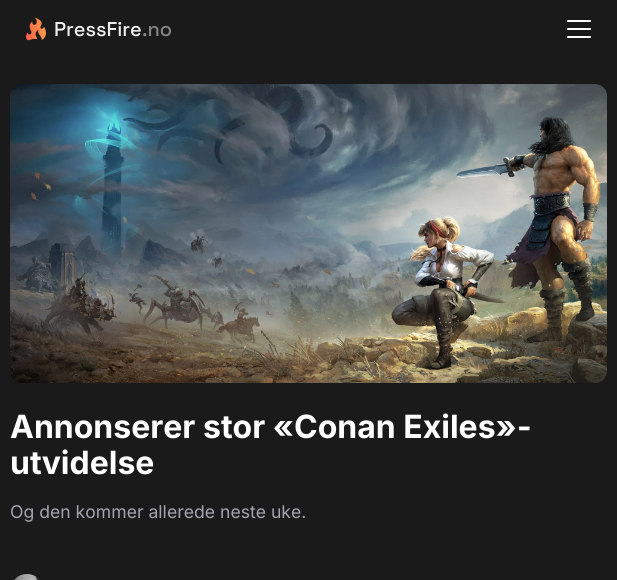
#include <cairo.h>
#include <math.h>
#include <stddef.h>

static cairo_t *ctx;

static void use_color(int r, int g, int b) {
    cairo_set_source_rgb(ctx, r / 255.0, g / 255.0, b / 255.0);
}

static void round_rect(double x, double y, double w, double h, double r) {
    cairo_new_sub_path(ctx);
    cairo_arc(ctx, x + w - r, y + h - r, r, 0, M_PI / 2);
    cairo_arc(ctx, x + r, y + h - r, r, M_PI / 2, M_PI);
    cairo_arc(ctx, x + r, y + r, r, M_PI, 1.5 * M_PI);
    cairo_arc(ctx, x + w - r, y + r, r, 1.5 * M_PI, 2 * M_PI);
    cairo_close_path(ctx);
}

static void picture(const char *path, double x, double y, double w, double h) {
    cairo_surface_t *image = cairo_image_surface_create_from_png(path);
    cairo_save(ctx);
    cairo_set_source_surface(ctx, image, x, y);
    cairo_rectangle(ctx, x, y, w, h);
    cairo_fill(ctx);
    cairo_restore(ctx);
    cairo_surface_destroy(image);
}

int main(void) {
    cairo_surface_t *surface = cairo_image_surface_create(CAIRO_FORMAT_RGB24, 617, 580);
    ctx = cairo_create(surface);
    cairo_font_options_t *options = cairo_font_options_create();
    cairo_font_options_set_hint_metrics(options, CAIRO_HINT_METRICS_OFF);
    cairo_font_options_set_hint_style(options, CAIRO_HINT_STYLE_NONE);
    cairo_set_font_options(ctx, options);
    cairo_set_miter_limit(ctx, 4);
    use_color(26, 26, 26);
    cairo_paint(ctx);
    picture("img1.png", 26, 17, 20, 24);
    cairo_select_font_face(ctx, "Space Grotesk Medium", CAIRO_FONT_SLANT_NORMAL, CAIRO_FONT_WEIGHT_NORMAL);
    cairo_set_font_size(ctx, 20);
    use_color(240, 240, 240);
    cairo_move_to(ctx, 54, 36);
    cairo_show_text(ctx, "PressFire");
    use_color(133, 133, 133);
    cairo_move_to(ctx, 142, 36);
    cairo_show_text(ctx, ".no");
    use_color(255, 255, 255);
    round_rect(567, 20, 24, 2, 1);
    cairo_fill(ctx);
    round_rect(567, 28, 24, 2, 1);
    cairo_fill(ctx);
    round_rect(567, 36, 24, 2, 1);
    cairo_fill(ctx);
    picture("img2.png", 10, 84, 597, 299);
    cairo_select_font_face(ctx, "Inter", CAIRO_FONT_SLANT_NORMAL, CAIRO_FONT_WEIGHT_BOLD);
    cairo_set_font_size(ctx, 32);
    cairo_move_to(ctx, 10, 438);
    cairo_show_text(ctx, "Annonserer stor «Conan Exiles»-");
    cairo_move_to(ctx, 10, 474);
    cairo_show_text(ctx, "utvidelse");
    cairo_select_font_face(ctx, "Inter", CAIRO_FONT_SLANT_NORMAL, CAIRO_FONT_WEIGHT_NORMAL);
    cairo_set_font_size(ctx, 17.6);
    use_color(164, 164, 175);
    cairo_move_to(ctx, 10, 518);
    cairo_show_text(ctx, "Og den kommer allerede neste uke.");
    picture("img3.png", 14, 574, 26, 6);
    cairo_surface_write_to_png(surface, "result.png");
    cairo_font_options_destroy(options);
    cairo_destroy(ctx);
    cairo_surface_destroy(surface);
    return 0;
}
